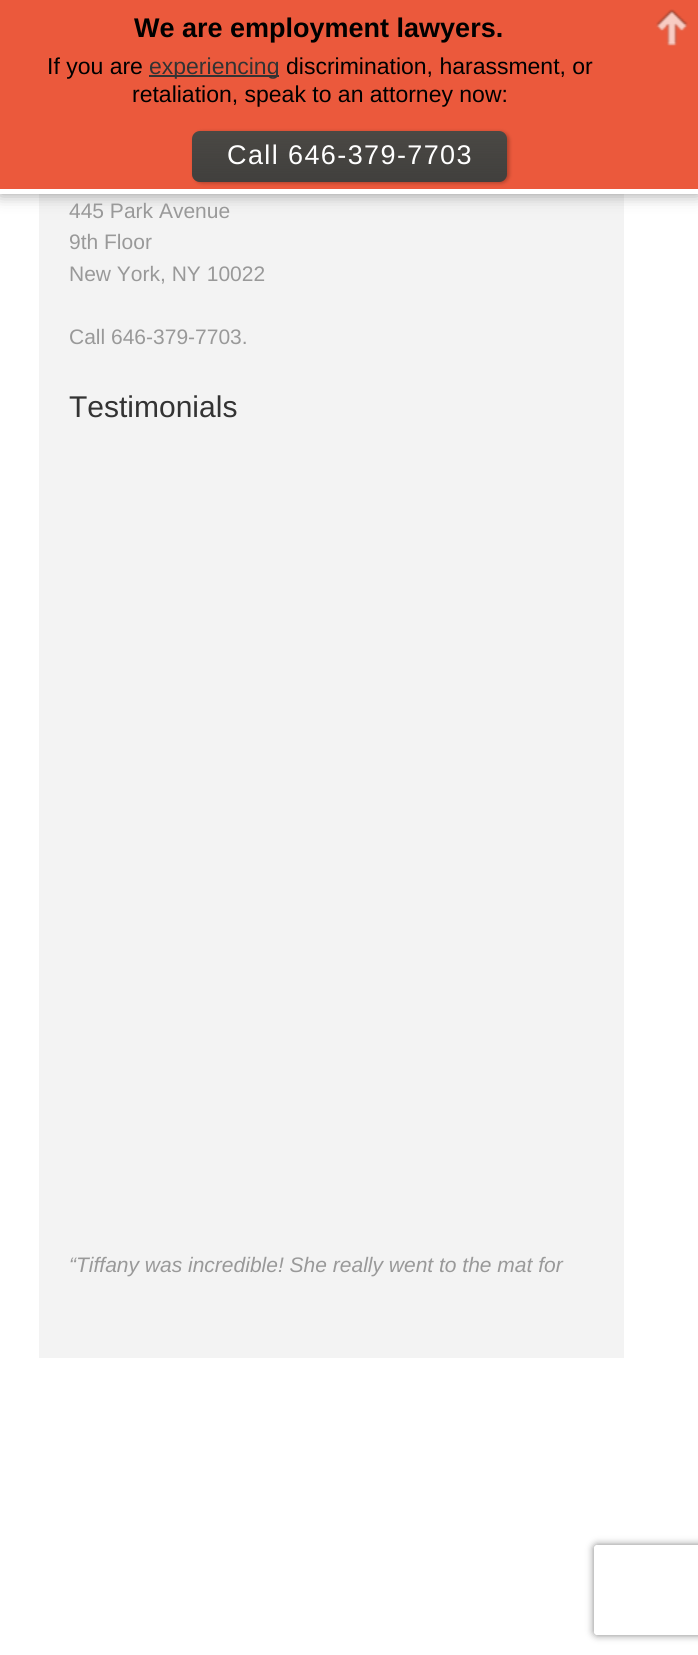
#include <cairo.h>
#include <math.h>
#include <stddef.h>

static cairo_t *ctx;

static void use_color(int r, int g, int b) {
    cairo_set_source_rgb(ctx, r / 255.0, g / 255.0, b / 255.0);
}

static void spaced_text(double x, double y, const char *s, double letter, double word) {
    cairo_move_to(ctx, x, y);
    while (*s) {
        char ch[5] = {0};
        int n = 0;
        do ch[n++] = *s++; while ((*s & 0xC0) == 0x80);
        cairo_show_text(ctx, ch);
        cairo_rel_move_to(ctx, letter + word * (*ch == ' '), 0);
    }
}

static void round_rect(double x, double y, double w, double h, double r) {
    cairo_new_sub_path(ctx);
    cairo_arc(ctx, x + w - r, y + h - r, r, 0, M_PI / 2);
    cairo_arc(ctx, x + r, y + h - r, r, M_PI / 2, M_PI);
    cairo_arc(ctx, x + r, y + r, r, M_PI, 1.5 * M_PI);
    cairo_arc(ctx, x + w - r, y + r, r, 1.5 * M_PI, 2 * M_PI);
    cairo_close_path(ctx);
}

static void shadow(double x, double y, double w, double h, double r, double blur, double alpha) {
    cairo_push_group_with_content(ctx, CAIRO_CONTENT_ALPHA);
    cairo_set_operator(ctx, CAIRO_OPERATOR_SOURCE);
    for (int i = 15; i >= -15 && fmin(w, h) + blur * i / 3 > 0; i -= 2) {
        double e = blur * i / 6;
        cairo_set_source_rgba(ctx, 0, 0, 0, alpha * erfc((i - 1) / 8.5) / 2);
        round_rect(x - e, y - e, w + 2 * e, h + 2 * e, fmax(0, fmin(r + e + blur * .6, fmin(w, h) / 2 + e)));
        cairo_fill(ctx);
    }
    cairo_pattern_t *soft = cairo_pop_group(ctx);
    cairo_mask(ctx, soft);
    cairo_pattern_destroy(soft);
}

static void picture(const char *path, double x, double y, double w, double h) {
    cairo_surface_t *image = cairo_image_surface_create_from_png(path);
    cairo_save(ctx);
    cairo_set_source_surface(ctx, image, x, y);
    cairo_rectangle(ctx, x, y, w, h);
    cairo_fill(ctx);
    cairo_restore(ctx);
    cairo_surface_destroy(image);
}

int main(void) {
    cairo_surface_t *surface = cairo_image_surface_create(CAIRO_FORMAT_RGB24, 698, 1655);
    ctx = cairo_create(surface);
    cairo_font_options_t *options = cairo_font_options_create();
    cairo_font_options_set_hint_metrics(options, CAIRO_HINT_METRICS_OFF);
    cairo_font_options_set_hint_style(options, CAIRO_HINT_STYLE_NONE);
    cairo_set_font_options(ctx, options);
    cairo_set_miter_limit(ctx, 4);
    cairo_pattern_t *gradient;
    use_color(255, 255, 255);
    cairo_paint(ctx);
    use_color(243, 243, 243);
    cairo_rectangle(ctx, 39, 194, 585, 1164);
    cairo_fill(ctx);
    use_color(0, 0, 0);
    shadow(0, 0, 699, 194, 0, 8, 0.4);
    use_color(235, 89, 60);
    cairo_rectangle(ctx, 0, 0, 698, 189);
    cairo_fill(ctx);
    use_color(255, 255, 255);
    cairo_rectangle(ctx, 0, 189, 698, 5);
    cairo_fill(ctx);
    cairo_select_font_face(ctx, "Liberation Sans", CAIRO_FONT_SLANT_NORMAL, CAIRO_FONT_WEIGHT_BOLD);
    cairo_set_font_size(ctx, 27);
    use_color(0, 0, 0);
    cairo_move_to(ctx, 134, 37);
    cairo_show_text(ctx, "We are employment lawyers.");
    cairo_select_font_face(ctx, "Liberation Sans", CAIRO_FONT_SLANT_NORMAL, CAIRO_FONT_WEIGHT_NORMAL);
    cairo_set_font_size(ctx, 23);
    cairo_move_to(ctx, 47, 74);
    cairo_show_text(ctx, "If you are");
    use_color(51, 51, 51);
    cairo_rectangle(ctx, 149, 75, 130, 2);
    cairo_fill(ctx);
    cairo_move_to(ctx, 149, 74);
    cairo_show_text(ctx, "experiencing");
    use_color(0, 0, 0);
    cairo_move_to(ctx, 286, 74);
    cairo_show_text(ctx, "discrimination, harassment, or");
    cairo_move_to(ctx, 132, 102);
    cairo_show_text(ctx, "retaliation, speak to an attorney now:");
    picture("img1.png", 656, 9, 32, 37);
    use_color(0, 0, 0);
    shadow(194, 132, 315, 51, 8, 2, 0.28);
    use_color(74, 72, 68);
    round_rect(192, 131, 315, 51, 8);
    cairo_fill(ctx);
    gradient = cairo_pattern_create_linear(192, 131, 192, 182);
    cairo_pattern_add_color_stop_rgba(gradient, 0, 0.2, 0.2, 0.2, 0);
    cairo_pattern_add_color_stop_rgba(gradient, 1, 0.2, 0.2, 0.2, 0.4);
    cairo_set_source(ctx, gradient);
    cairo_pattern_destroy(gradient);
    round_rect(192, 131, 315, 51, 8);
    cairo_fill(ctx);
    cairo_set_font_size(ctx, 27);
    use_color(255, 255, 255);
    spaced_text(227, 164, "Call 646-379-7703", 1.4, 0);
    cairo_set_font_size(ctx, 21);
    use_color(153, 153, 153);
    cairo_move_to(ctx, 69, 218);
    cairo_show_text(ctx, "445 Park Avenue");
    cairo_move_to(ctx, 69, 249);
    cairo_show_text(ctx, "9th Floor");
    cairo_move_to(ctx, 69, 281);
    cairo_show_text(ctx, "New York, NY 10022");
    cairo_move_to(ctx, 69, 344);
    cairo_show_text(ctx, "Call 646-379-7703.");
    cairo_set_font_size(ctx, 30);
    use_color(51, 51, 51);
    cairo_move_to(ctx, 69, 417);
    cairo_show_text(ctx, "Testimonials");
    cairo_select_font_face(ctx, "Liberation Sans", CAIRO_FONT_SLANT_ITALIC, CAIRO_FONT_WEIGHT_NORMAL);
    cairo_set_font_size(ctx, 21);
    use_color(153, 153, 153);
    cairo_move_to(ctx, 69, 1272);
    cairo_show_text(ctx, "“Tiffany was incredible! She really went to the mat for");
    cairo_save(ctx);
    cairo_set_fill_rule(ctx, CAIRO_FILL_RULE_EVEN_ODD);
    cairo_new_path(ctx);
    cairo_move_to(ctx, 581, 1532);
    cairo_line_to(ctx, 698, 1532);
    cairo_line_to(ctx, 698, 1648);
    cairo_line_to(ctx, 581, 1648);
    cairo_close_path(ctx);
    cairo_move_to(ctx, 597, 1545);
    cairo_line_to(ctx, 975, 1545);
    cairo_curve_to(ctx, 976.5, 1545, 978, 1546.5, 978, 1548);
    cairo_line_to(ctx, 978, 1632);
    cairo_curve_to(ctx, 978, 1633.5, 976.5, 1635, 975, 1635);
    cairo_line_to(ctx, 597, 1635);
    cairo_curve_to(ctx, 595.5, 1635, 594, 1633.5, 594, 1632);
    cairo_line_to(ctx, 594, 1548);
    cairo_curve_to(ctx, 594, 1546.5, 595.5, 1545, 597, 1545);
    cairo_close_path(ctx);
    cairo_clip(ctx);
    use_color(128, 128, 128);
    shadow(594, 1545, 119, 90, 3, 4, 1);
    cairo_restore(ctx);
    cairo_surface_write_to_png(surface, "result.png");
    cairo_font_options_destroy(options);
    cairo_destroy(ctx);
    cairo_surface_destroy(surface);
    return 0;
}
